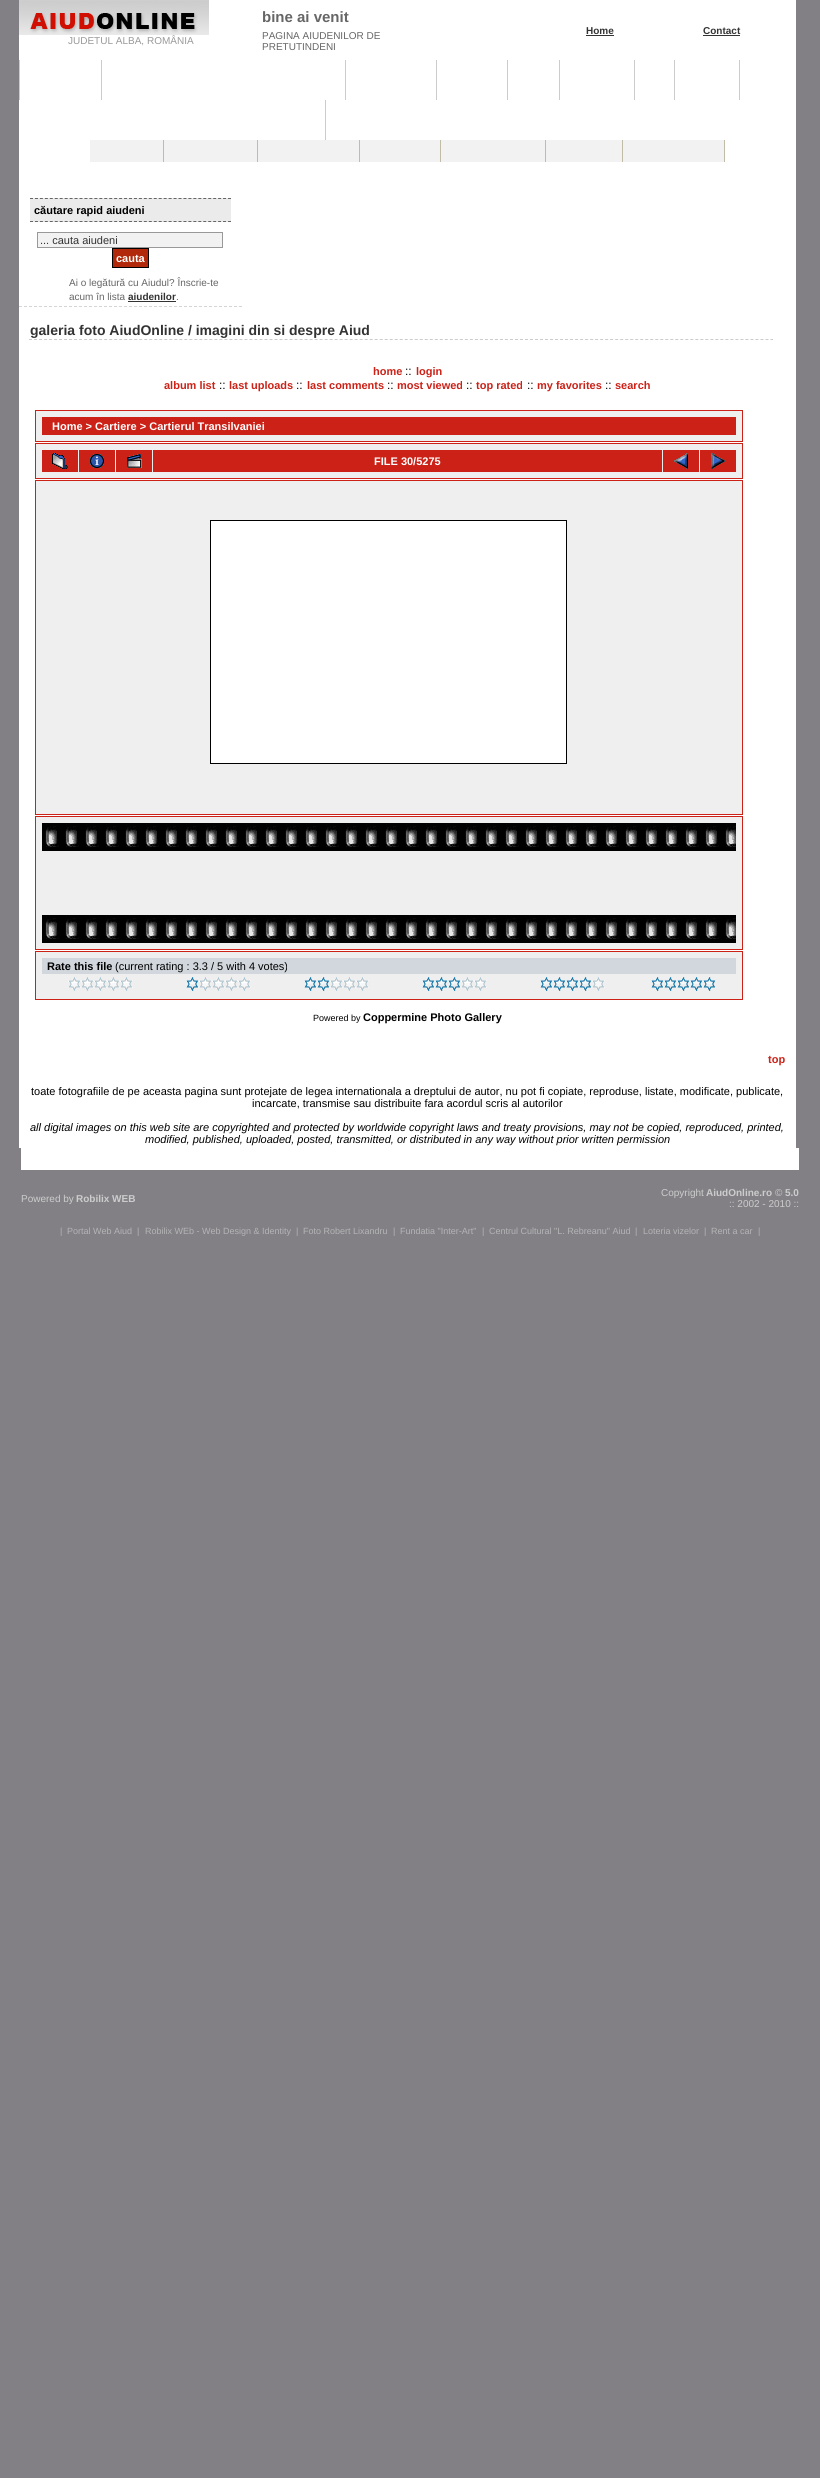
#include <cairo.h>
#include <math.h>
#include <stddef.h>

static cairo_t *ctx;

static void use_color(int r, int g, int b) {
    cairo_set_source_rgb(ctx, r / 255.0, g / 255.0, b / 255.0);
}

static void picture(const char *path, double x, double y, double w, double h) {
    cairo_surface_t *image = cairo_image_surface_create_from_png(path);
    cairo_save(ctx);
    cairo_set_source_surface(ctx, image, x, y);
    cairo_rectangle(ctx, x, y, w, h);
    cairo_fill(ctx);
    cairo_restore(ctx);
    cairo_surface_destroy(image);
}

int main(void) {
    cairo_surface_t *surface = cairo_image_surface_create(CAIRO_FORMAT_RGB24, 820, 2478);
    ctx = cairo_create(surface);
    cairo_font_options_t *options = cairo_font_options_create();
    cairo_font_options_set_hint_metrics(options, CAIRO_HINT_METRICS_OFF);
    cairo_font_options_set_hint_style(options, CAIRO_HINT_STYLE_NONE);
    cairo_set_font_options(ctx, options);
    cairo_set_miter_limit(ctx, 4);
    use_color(130, 128, 133);
    cairo_paint(ctx);
    use_color(255, 255, 255);
    cairo_rectangle(ctx, 19, 0, 777, 1148);
    cairo_fill(ctx);
    cairo_select_font_face(ctx, "Liberation Sans", CAIRO_FONT_SLANT_NORMAL, CAIRO_FONT_WEIGHT_BOLD);
    cairo_set_font_size(ctx, 15);
    use_color(102, 102, 102);
    cairo_move_to(ctx, 262, 22);
    cairo_show_text(ctx, "bine ai venit");
    cairo_select_font_face(ctx, "Liberation Sans", CAIRO_FONT_SLANT_NORMAL, CAIRO_FONT_WEIGHT_NORMAL);
    cairo_set_font_size(ctx, 10);
    cairo_move_to(ctx, 262, 39);
    cairo_show_text(ctx, "PAGINA AIUDENILOR DE");
    cairo_move_to(ctx, 262, 50);
    cairo_show_text(ctx, "PRETUTINDENI");
    cairo_select_font_face(ctx, "Liberation Sans", CAIRO_FONT_SLANT_NORMAL, CAIRO_FONT_WEIGHT_BOLD);
    use_color(51, 51, 51);
    cairo_move_to(ctx, 586, 34);
    cairo_show_text(ctx, "Home");
    cairo_rectangle(ctx, 586, 35, 28, 1);
    cairo_fill(ctx);
    cairo_move_to(ctx, 703, 34);
    cairo_show_text(ctx, "Contact");
    cairo_rectangle(ctx, 703, 35, 37, 1);
    cairo_fill(ctx);
    picture("img1.png", 19, 0, 190, 35);
    cairo_select_font_face(ctx, "Liberation Sans", CAIRO_FONT_SLANT_NORMAL, CAIRO_FONT_WEIGHT_NORMAL);
    use_color(153, 153, 153);
    cairo_move_to(ctx, 68, 44);
    cairo_show_text(ctx, "JUDETUL ALBA, ROMÂNIA");
    use_color(204, 204, 204);
    cairo_rectangle(ctx, 19, 60, 1, 40);
    cairo_fill(ctx);
    cairo_rectangle(ctx, 101, 60, 1, 40);
    cairo_fill(ctx);
    cairo_rectangle(ctx, 345, 60, 1, 40);
    cairo_fill(ctx);
    cairo_rectangle(ctx, 436, 60, 1, 40);
    cairo_fill(ctx);
    cairo_rectangle(ctx, 507, 60, 1, 40);
    cairo_fill(ctx);
    cairo_rectangle(ctx, 559, 60, 1, 40);
    cairo_fill(ctx);
    cairo_rectangle(ctx, 634, 60, 1, 40);
    cairo_fill(ctx);
    cairo_rectangle(ctx, 674, 60, 1, 40);
    cairo_fill(ctx);
    cairo_rectangle(ctx, 739, 60, 1, 40);
    cairo_fill(ctx);
    cairo_rectangle(ctx, 325, 100, 1, 40);
    cairo_fill(ctx);
    use_color(242, 242, 242);
    cairo_rectangle(ctx, 90, 140, 634, 22);
    cairo_fill(ctx);
    use_color(193, 188, 167);
    cairo_rectangle(ctx, 163, 140, 1, 22);
    cairo_fill(ctx);
    cairo_rectangle(ctx, 257, 140, 1, 22);
    cairo_fill(ctx);
    cairo_rectangle(ctx, 359, 140, 1, 22);
    cairo_fill(ctx);
    cairo_rectangle(ctx, 440, 140, 1, 22);
    cairo_fill(ctx);
    cairo_rectangle(ctx, 545, 140, 1, 22);
    cairo_fill(ctx);
    cairo_rectangle(ctx, 622, 140, 1, 22);
    cairo_fill(ctx);
    cairo_rectangle(ctx, 724, 140, 1, 22);
    cairo_fill(ctx);
    cairo_new_path(ctx);
    cairo_move_to(ctx, 19, 306.5);
    cairo_line_to(ctx, 242, 306.5);
    use_color(213, 213, 213);
    cairo_set_line_width(ctx, 1);
    cairo_set_dash(ctx, (double[]){3, 2}, 2, 0);
    cairo_stroke(ctx);
    use_color(235, 235, 235);
    cairo_rectangle(ctx, 30, 198, 201, 24);
    cairo_fill(ctx);
    cairo_new_path(ctx);
    cairo_move_to(ctx, 30, 198.5);
    cairo_line_to(ctx, 231, 198.5);
    use_color(102, 102, 102);
    cairo_set_dash(ctx, (double[]){3, 1.95}, 2, 0);
    cairo_stroke(ctx);
    cairo_new_path(ctx);
    cairo_move_to(ctx, 30, 221.5);
    cairo_line_to(ctx, 231, 221.5);
    cairo_stroke(ctx);
    cairo_select_font_face(ctx, "Liberation Sans", CAIRO_FONT_SLANT_NORMAL, CAIRO_FONT_WEIGHT_BOLD);
    cairo_set_font_size(ctx, 11);
    use_color(0, 0, 0);
    cairo_move_to(ctx, 34, 214);
    cairo_show_text(ctx, "căutare rapid aiudeni");
    use_color(242, 242, 242);
    cairo_rectangle(ctx, 37.5, 232.5, 185, 15);
    cairo_fill_preserve(ctx);
    use_color(153, 153, 153);
    cairo_set_dash(ctx, NULL, 0, 0);
    cairo_stroke(ctx);
    cairo_select_font_face(ctx, "Liberation Sans", CAIRO_FONT_SLANT_NORMAL, CAIRO_FONT_WEIGHT_NORMAL);
    use_color(51, 51, 51);
    cairo_move_to(ctx, 40, 244);
    cairo_show_text(ctx, "... cauta aiudeni");
    use_color(177, 41, 10);
    cairo_rectangle(ctx, 112.5, 248.5, 36, 19);
    cairo_fill_preserve(ctx);
    use_color(0, 0, 0);
    cairo_stroke(ctx);
    cairo_select_font_face(ctx, "Liberation Sans", CAIRO_FONT_SLANT_NORMAL, CAIRO_FONT_WEIGHT_BOLD);
    use_color(255, 255, 255);
    cairo_move_to(ctx, 116, 262);
    cairo_show_text(ctx, "cauta");
    cairo_select_font_face(ctx, "Liberation Sans", CAIRO_FONT_SLANT_NORMAL, CAIRO_FONT_WEIGHT_NORMAL);
    cairo_set_font_size(ctx, 10);
    use_color(102, 102, 102);
    cairo_move_to(ctx, 69, 286);
    cairo_show_text(ctx, "Ai o legătură cu Aiudul? Înscrie-te");
    cairo_move_to(ctx, 69, 300);
    cairo_show_text(ctx, "acum în lista");
    cairo_select_font_face(ctx, "Liberation Sans", CAIRO_FONT_SLANT_NORMAL, CAIRO_FONT_WEIGHT_BOLD);
    use_color(51, 51, 51);
    cairo_move_to(ctx, 128, 300);
    cairo_show_text(ctx, "aiudenilor");
    cairo_rectangle(ctx, 128, 301, 48, 1);
    cairo_fill(ctx);
    cairo_select_font_face(ctx, "Liberation Sans", CAIRO_FONT_SLANT_NORMAL, CAIRO_FONT_WEIGHT_NORMAL);
    use_color(102, 102, 102);
    cairo_move_to(ctx, 176, 300);
    cairo_show_text(ctx, ".");
    cairo_new_path(ctx);
    cairo_move_to(ctx, 29, 339.5);
    cairo_line_to(ctx, 773, 339.5);
    use_color(204, 204, 204);
    cairo_set_dash(ctx, (double[]){3, 2.01}, 2, 0);
    cairo_stroke(ctx);
    cairo_select_font_face(ctx, "Liberation Sans", CAIRO_FONT_SLANT_NORMAL, CAIRO_FONT_WEIGHT_BOLD);
    cairo_set_font_size(ctx, 14);
    use_color(51, 51, 51);
    cairo_move_to(ctx, 30, 335);
    cairo_show_text(ctx, "galeria foto AiudOnline / imagini din si despre Aiud");
    cairo_set_font_size(ctx, 11);
    use_color(203, 33, 23);
    cairo_move_to(ctx, 373, 375);
    cairo_show_text(ctx, "home");
    cairo_select_font_face(ctx, "Liberation Sans", CAIRO_FONT_SLANT_NORMAL, CAIRO_FONT_WEIGHT_NORMAL);
    cairo_set_font_size(ctx, 12);
    use_color(0, 0, 0);
    cairo_move_to(ctx, 405, 375);
    cairo_show_text(ctx, "::");
    cairo_select_font_face(ctx, "Liberation Sans", CAIRO_FONT_SLANT_NORMAL, CAIRO_FONT_WEIGHT_BOLD);
    cairo_set_font_size(ctx, 11);
    use_color(203, 33, 23);
    cairo_move_to(ctx, 416, 375);
    cairo_show_text(ctx, "login");
    cairo_move_to(ctx, 164, 389);
    cairo_show_text(ctx, "album list");
    cairo_select_font_face(ctx, "Liberation Sans", CAIRO_FONT_SLANT_NORMAL, CAIRO_FONT_WEIGHT_NORMAL);
    cairo_set_font_size(ctx, 12);
    use_color(0, 0, 0);
    cairo_move_to(ctx, 219, 389);
    cairo_show_text(ctx, "::");
    cairo_select_font_face(ctx, "Liberation Sans", CAIRO_FONT_SLANT_NORMAL, CAIRO_FONT_WEIGHT_BOLD);
    cairo_set_font_size(ctx, 11);
    use_color(203, 33, 23);
    cairo_move_to(ctx, 229, 389);
    cairo_show_text(ctx, "last uploads");
    cairo_select_font_face(ctx, "Liberation Sans", CAIRO_FONT_SLANT_NORMAL, CAIRO_FONT_WEIGHT_NORMAL);
    cairo_set_font_size(ctx, 12);
    use_color(0, 0, 0);
    cairo_move_to(ctx, 296, 389);
    cairo_show_text(ctx, "::");
    cairo_select_font_face(ctx, "Liberation Sans", CAIRO_FONT_SLANT_NORMAL, CAIRO_FONT_WEIGHT_BOLD);
    cairo_set_font_size(ctx, 11);
    use_color(203, 33, 23);
    cairo_move_to(ctx, 307, 389);
    cairo_show_text(ctx, "last comments");
    cairo_select_font_face(ctx, "Liberation Sans", CAIRO_FONT_SLANT_NORMAL, CAIRO_FONT_WEIGHT_NORMAL);
    cairo_set_font_size(ctx, 12);
    use_color(0, 0, 0);
    cairo_move_to(ctx, 387, 389);
    cairo_show_text(ctx, "::");
    cairo_select_font_face(ctx, "Liberation Sans", CAIRO_FONT_SLANT_NORMAL, CAIRO_FONT_WEIGHT_BOLD);
    cairo_set_font_size(ctx, 11);
    use_color(203, 33, 23);
    cairo_move_to(ctx, 397, 389);
    cairo_show_text(ctx, "most viewed");
    cairo_select_font_face(ctx, "Liberation Sans", CAIRO_FONT_SLANT_NORMAL, CAIRO_FONT_WEIGHT_NORMAL);
    cairo_set_font_size(ctx, 12);
    use_color(0, 0, 0);
    cairo_move_to(ctx, 466, 389);
    cairo_show_text(ctx, "::");
    cairo_select_font_face(ctx, "Liberation Sans", CAIRO_FONT_SLANT_NORMAL, CAIRO_FONT_WEIGHT_BOLD);
    cairo_set_font_size(ctx, 11);
    use_color(203, 33, 23);
    cairo_move_to(ctx, 476, 389);
    cairo_show_text(ctx, "top rated");
    cairo_select_font_face(ctx, "Liberation Sans", CAIRO_FONT_SLANT_NORMAL, CAIRO_FONT_WEIGHT_NORMAL);
    cairo_set_font_size(ctx, 12);
    use_color(0, 0, 0);
    cairo_move_to(ctx, 527, 389);
    cairo_show_text(ctx, "::");
    cairo_select_font_face(ctx, "Liberation Sans", CAIRO_FONT_SLANT_NORMAL, CAIRO_FONT_WEIGHT_BOLD);
    cairo_set_font_size(ctx, 11);
    use_color(203, 33, 23);
    cairo_move_to(ctx, 537, 389);
    cairo_show_text(ctx, "my favorites");
    cairo_select_font_face(ctx, "Liberation Sans", CAIRO_FONT_SLANT_NORMAL, CAIRO_FONT_WEIGHT_NORMAL);
    cairo_set_font_size(ctx, 12);
    use_color(0, 0, 0);
    cairo_move_to(ctx, 605, 389);
    cairo_show_text(ctx, "::");
    cairo_select_font_face(ctx, "Liberation Sans", CAIRO_FONT_SLANT_NORMAL, CAIRO_FONT_WEIGHT_BOLD);
    cairo_set_font_size(ctx, 11);
    use_color(203, 33, 23);
    cairo_move_to(ctx, 615, 389);
    cairo_show_text(ctx, "search");
    use_color(239, 239, 239);
    cairo_rectangle(ctx, 35.5, 410.5, 707, 31);
    cairo_fill_preserve(ctx);
    use_color(203, 33, 23);
    cairo_set_dash(ctx, NULL, 0, 0);
    cairo_stroke(ctx);
    cairo_rectangle(ctx, 42, 417, 694, 18);
    cairo_fill(ctx);
    use_color(255, 255, 255);
    cairo_move_to(ctx, 52, 430);
    cairo_show_text(ctx, "Home > Cartiere > Cartierul Transilvaniei");
    use_color(239, 239, 239);
    cairo_rectangle(ctx, 35.5, 443.5, 707, 35);
    cairo_fill_preserve(ctx);
    use_color(203, 33, 23);
    cairo_stroke(ctx);
    cairo_rectangle(ctx, 42, 450, 36, 22);
    cairo_fill(ctx);
    picture("img2.png", 52, 453, 16, 16);
    cairo_rectangle(ctx, 79, 450, 36, 22);
    cairo_fill(ctx);
    picture("img3.png", 90, 454, 14, 14);
    cairo_rectangle(ctx, 116, 450, 36, 22);
    cairo_fill(ctx);
    picture("img4.png", 127, 454, 15, 14);
    cairo_rectangle(ctx, 153, 450, 509, 22);
    cairo_fill(ctx);
    use_color(255, 255, 255);
    cairo_move_to(ctx, 374, 465);
    cairo_show_text(ctx, "FILE 30/5275");
    use_color(203, 33, 23);
    cairo_rectangle(ctx, 663, 450, 36, 22);
    cairo_fill(ctx);
    picture("img5.png", 674, 453, 14, 16);
    cairo_rectangle(ctx, 700, 450, 36, 22);
    cairo_fill(ctx);
    picture("img6.png", 711, 453, 14, 16);
    use_color(239, 239, 239);
    cairo_rectangle(ctx, 35.5, 480.5, 707, 334);
    cairo_fill_preserve(ctx);
    use_color(203, 33, 23);
    cairo_stroke(ctx);
    use_color(255, 255, 255);
    cairo_rectangle(ctx, 210.5, 520.5, 356, 243);
    cairo_fill_preserve(ctx);
    use_color(0, 0, 0);
    cairo_stroke(ctx);
    use_color(239, 239, 239);
    cairo_rectangle(ctx, 35.5, 816.5, 707, 133);
    cairo_fill_preserve(ctx);
    use_color(203, 33, 23);
    cairo_stroke(ctx);
    picture("img7.png", 42, 823, 694, 28);
    picture("img7.png", 42, 915, 694, 28);
    use_color(239, 239, 239);
    cairo_rectangle(ctx, 35.5, 951.5, 707, 48);
    cairo_fill_preserve(ctx);
    use_color(203, 33, 23);
    cairo_stroke(ctx);
    use_color(209, 215, 220);
    cairo_rectangle(ctx, 42, 958, 694, 16);
    cairo_fill(ctx);
    use_color(0, 0, 0);
    cairo_move_to(ctx, 47, 970);
    cairo_show_text(ctx, "Rate this file");
    cairo_select_font_face(ctx, "Liberation Sans", CAIRO_FONT_SLANT_NORMAL, CAIRO_FONT_WEIGHT_NORMAL);
    cairo_move_to(ctx, 115, 970);
    cairo_show_text(ctx, "(current rating : 3.3 / 5 with 4 votes)");
    picture("img8.png", 68, 977, 65, 14);
    picture("img9.png", 186, 977, 65, 14);
    picture("img10.png", 304, 977, 65, 14);
    picture("img11.png", 422, 977, 65, 14);
    picture("img12.png", 540, 977, 65, 14);
    picture("img13.png", 651, 977, 65, 14);
    cairo_set_font_size(ctx, 9);
    cairo_move_to(ctx, 313, 1021);
    cairo_show_text(ctx, "Powered by");
    cairo_select_font_face(ctx, "Liberation Sans", CAIRO_FONT_SLANT_NORMAL, CAIRO_FONT_WEIGHT_BOLD);
    cairo_set_font_size(ctx, 11);
    cairo_move_to(ctx, 363, 1021);
    cairo_show_text(ctx, "Coppermine Photo Gallery");
    use_color(203, 33, 23);
    cairo_move_to(ctx, 768, 1063);
    cairo_show_text(ctx, "top");
    cairo_select_font_face(ctx, "Liberation Sans", CAIRO_FONT_SLANT_NORMAL, CAIRO_FONT_WEIGHT_NORMAL);
    use_color(0, 0, 0);
    cairo_move_to(ctx, 31, 1095);
    cairo_show_text(ctx, "toate fotografiile de pe aceasta pagina sunt protejate de legea internationala a dreptului de autor, nu pot fi copiate, reproduse, listate, modificate, publicate,");
    cairo_move_to(ctx, 252, 1107);
    cairo_show_text(ctx, "incarcate, transmise sau distribuite fara acordul scris al autorilor");
    cairo_select_font_face(ctx, "Liberation Sans", CAIRO_FONT_SLANT_ITALIC, CAIRO_FONT_WEIGHT_NORMAL);
    cairo_move_to(ctx, 30, 1131);
    cairo_show_text(ctx, "all digital images on this web site are copyrighted and protected by worldwide copyright laws and treaty provisions, may not be copied, reproduced, printed,");
    cairo_move_to(ctx, 145, 1143);
    cairo_show_text(ctx, "modified, published, uploaded, posted, transmitted, or distributed in any way without prior written permission");
    use_color(255, 255, 255);
    cairo_rectangle(ctx, 21, 1148, 778, 22);
    cairo_fill(ctx);
    cairo_select_font_face(ctx, "Liberation Sans", CAIRO_FONT_SLANT_NORMAL, CAIRO_FONT_WEIGHT_NORMAL);
    cairo_set_font_size(ctx, 10);
    use_color(204, 204, 204);
    cairo_move_to(ctx, 21, 1202);
    cairo_show_text(ctx, "Powered by");
    cairo_select_font_face(ctx, "Liberation Sans", CAIRO_FONT_SLANT_NORMAL, CAIRO_FONT_WEIGHT_BOLD);
    cairo_move_to(ctx, 76, 1202);
    cairo_show_text(ctx, "Robilix WEB");
    cairo_select_font_face(ctx, "Liberation Sans", CAIRO_FONT_SLANT_NORMAL, CAIRO_FONT_WEIGHT_NORMAL);
    cairo_move_to(ctx, 661, 1196);
    cairo_show_text(ctx, "Copyright");
    cairo_select_font_face(ctx, "Liberation Sans", CAIRO_FONT_SLANT_NORMAL, CAIRO_FONT_WEIGHT_BOLD);
    cairo_move_to(ctx, 706, 1196);
    cairo_show_text(ctx, "AiudOnline.ro");
    cairo_select_font_face(ctx, "Liberation Sans", CAIRO_FONT_SLANT_NORMAL, CAIRO_FONT_WEIGHT_NORMAL);
    cairo_move_to(ctx, 775, 1196);
    cairo_show_text(ctx, "©");
    cairo_select_font_face(ctx, "Liberation Sans", CAIRO_FONT_SLANT_NORMAL, CAIRO_FONT_WEIGHT_BOLD);
    cairo_move_to(ctx, 785, 1196);
    cairo_show_text(ctx, "5.0");
    cairo_select_font_face(ctx, "Liberation Sans", CAIRO_FONT_SLANT_NORMAL, CAIRO_FONT_WEIGHT_NORMAL);
    cairo_move_to(ctx, 729, 1207);
    cairo_show_text(ctx, ":: 2002 - 2010 ::");
    cairo_set_font_size(ctx, 9);
    use_color(180, 179, 181);
    cairo_move_to(ctx, 60, 1234);
    cairo_show_text(ctx, "|");
    cairo_move_to(ctx, 67, 1234);
    cairo_show_text(ctx, "Portal Web Aiud");
    cairo_move_to(ctx, 137, 1234);
    cairo_show_text(ctx, "|");
    cairo_move_to(ctx, 145, 1234);
    cairo_show_text(ctx, "Robilix WEb - Web Design & Identity");
    cairo_move_to(ctx, 296, 1234);
    cairo_show_text(ctx, "|");
    cairo_move_to(ctx, 303, 1234);
    cairo_show_text(ctx, "Foto Robert Lixandru");
    cairo_move_to(ctx, 393, 1234);
    cairo_show_text(ctx, "|");
    cairo_move_to(ctx, 400, 1234);
    cairo_show_text(ctx, "Fundatia \"Inter-Art\"");
    cairo_move_to(ctx, 482, 1234);
    cairo_show_text(ctx, "|");
    cairo_move_to(ctx, 489, 1234);
    cairo_show_text(ctx, "Centrul Cultural \"L. Rebreanu\" Aiud");
    cairo_move_to(ctx, 635, 1234);
    cairo_show_text(ctx, "|");
    cairo_move_to(ctx, 643, 1234);
    cairo_show_text(ctx, "Loteria vizelor");
    cairo_move_to(ctx, 704, 1234);
    cairo_show_text(ctx, "|");
    cairo_move_to(ctx, 711, 1234);
    cairo_show_text(ctx, "Rent a car");
    cairo_move_to(ctx, 758, 1234);
    cairo_show_text(ctx, "|");
    cairo_surface_write_to_png(surface, "result.png");
    cairo_font_options_destroy(options);
    cairo_destroy(ctx);
    cairo_surface_destroy(surface);
    return 0;
}
